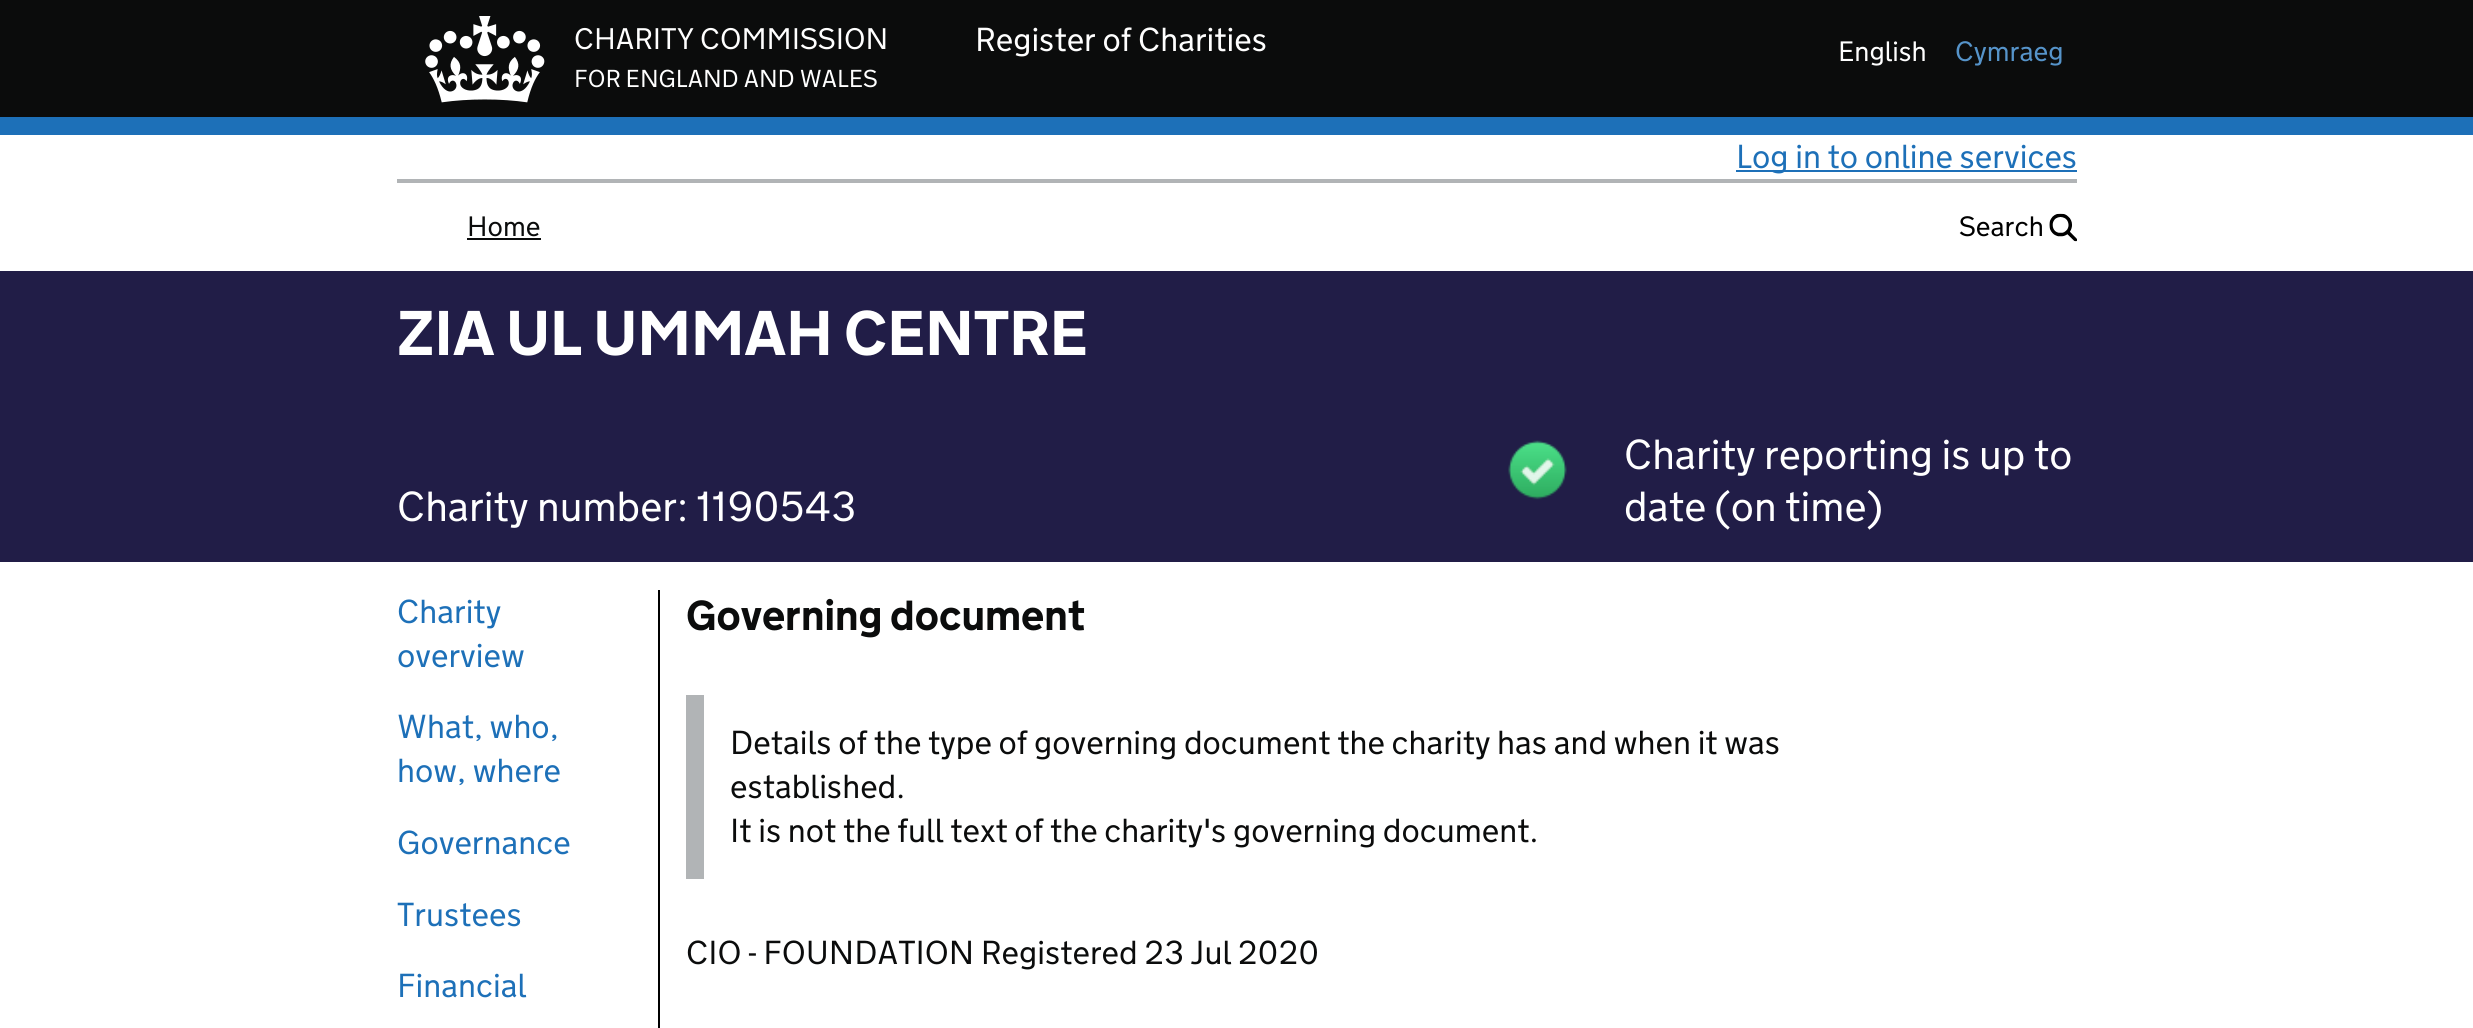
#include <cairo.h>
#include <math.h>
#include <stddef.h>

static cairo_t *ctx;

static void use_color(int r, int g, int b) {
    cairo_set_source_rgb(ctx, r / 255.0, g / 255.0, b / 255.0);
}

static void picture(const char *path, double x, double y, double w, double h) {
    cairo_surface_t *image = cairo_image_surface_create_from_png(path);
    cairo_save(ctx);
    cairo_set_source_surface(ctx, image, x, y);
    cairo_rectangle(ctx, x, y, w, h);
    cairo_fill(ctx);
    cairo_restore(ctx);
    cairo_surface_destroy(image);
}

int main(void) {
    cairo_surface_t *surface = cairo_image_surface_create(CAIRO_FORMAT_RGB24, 2473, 1028);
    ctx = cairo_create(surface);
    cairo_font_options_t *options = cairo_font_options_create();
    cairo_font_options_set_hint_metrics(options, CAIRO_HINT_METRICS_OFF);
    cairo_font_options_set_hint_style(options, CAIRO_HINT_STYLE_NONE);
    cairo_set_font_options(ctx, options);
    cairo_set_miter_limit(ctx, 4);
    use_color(255, 255, 255);
    cairo_paint(ctx);
    use_color(11, 12, 12);
    cairo_rectangle(ctx, 0, 0, 2473, 117);
    cairo_fill(ctx);
    use_color(29, 112, 184);
    cairo_rectangle(ctx, 0, 117, 2473, 18);
    cairo_fill(ctx);
    picture("img1.png", 425, 16, 120, 87);
    cairo_select_font_face(ctx, "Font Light", CAIRO_FONT_SLANT_NORMAL, CAIRO_FONT_WEIGHT_NORMAL);
    cairo_set_font_size(ctx, 29.75);
    use_color(255, 255, 255);
    cairo_move_to(ctx, 574, 49);
    cairo_show_text(ctx, "CHARITY COMMISSION");
    cairo_set_font_size(ctx, 24.5);
    cairo_move_to(ctx, 574, 87);
    cairo_show_text(ctx, "FOR ENGLAND AND WALES");
    cairo_set_font_size(ctx, 33.25);
    cairo_move_to(ctx, 975, 51);
    cairo_show_text(ctx, "Register of Charities");
    cairo_set_font_size(ctx, 28);
    cairo_move_to(ctx, 1838, 61);
    cairo_show_text(ctx, "English");
    use_color(86, 148, 202);
    cairo_move_to(ctx, 1955, 61);
    cairo_show_text(ctx, "Cymraeg");
    use_color(177, 180, 182);
    cairo_rectangle(ctx, 397, 179, 1680, 4);
    cairo_fill(ctx);
    use_color(29, 112, 184);
    cairo_rectangle(ctx, 1736, 170, 341, 2);
    cairo_fill(ctx);
    cairo_set_font_size(ctx, 33.25);
    cairo_move_to(ctx, 1736, 168);
    cairo_show_text(ctx, "Log in to online services");
    cairo_set_font_size(ctx, 28);
    use_color(11, 12, 12);
    cairo_move_to(ctx, 467, 236);
    cairo_show_text(ctx, "Home");
    cairo_rectangle(ctx, 467, 238, 74, 2);
    cairo_fill(ctx);
    use_color(0, 0, 0);
    cairo_move_to(ctx, 1959, 236);
    cairo_show_text(ctx, "Search");
    picture("img2.png", 2049, 213, 28, 29);
    use_color(33, 29, 71);
    cairo_rectangle(ctx, 0, 271, 2473, 291);
    cairo_fill(ctx);
    cairo_select_font_face(ctx, "Font", CAIRO_FONT_SLANT_NORMAL, CAIRO_FONT_WEIGHT_BOLD);
    cairo_set_font_size(ctx, 63);
    use_color(255, 255, 255);
    cairo_move_to(ctx, 397, 355);
    cairo_show_text(ctx, "ZIA UL UMMAH CENTRE");
    cairo_select_font_face(ctx, "Font Light", CAIRO_FONT_SLANT_NORMAL, CAIRO_FONT_WEIGHT_NORMAL);
    cairo_set_font_size(ctx, 42);
    cairo_move_to(ctx, 397, 521);
    cairo_show_text(ctx, "Charity number: 1190543");
    picture("img3.png", 1508, 440, 59, 60);
    cairo_move_to(ctx, 1624, 469);
    cairo_show_text(ctx, "Charity reporting is up to");
    cairo_move_to(ctx, 1624, 521);
    cairo_show_text(ctx, "date (on time)");
    use_color(0, 0, 0);
    cairo_rectangle(ctx, 658, 590, 2, 438);
    cairo_fill(ctx);
    cairo_set_font_size(ctx, 33.25);
    use_color(29, 112, 184);
    cairo_move_to(ctx, 397, 623);
    cairo_show_text(ctx, "Charity");
    cairo_move_to(ctx, 397, 667);
    cairo_show_text(ctx, "overview");
    cairo_move_to(ctx, 397, 738);
    cairo_show_text(ctx, "What, who,");
    cairo_move_to(ctx, 397, 782);
    cairo_show_text(ctx, "how, where");
    cairo_move_to(ctx, 397, 854);
    cairo_show_text(ctx, "Governance");
    cairo_move_to(ctx, 397, 926);
    cairo_show_text(ctx, "Trustees");
    cairo_move_to(ctx, 397, 997);
    cairo_show_text(ctx, "Financial");
    cairo_select_font_face(ctx, "Font", CAIRO_FONT_SLANT_NORMAL, CAIRO_FONT_WEIGHT_BOLD);
    cairo_set_font_size(ctx, 42);
    use_color(11, 12, 12);
    cairo_move_to(ctx, 686, 630);
    cairo_show_text(ctx, "Governing document");
    use_color(177, 180, 182);
    cairo_rectangle(ctx, 686, 695, 18, 184);
    cairo_fill(ctx);
    cairo_select_font_face(ctx, "Font Light", CAIRO_FONT_SLANT_NORMAL, CAIRO_FONT_WEIGHT_NORMAL);
    cairo_set_font_size(ctx, 33.25);
    use_color(11, 12, 12);
    cairo_move_to(ctx, 730, 754);
    cairo_show_text(ctx, "Details of the type of governing document the charity has and when it was");
    cairo_move_to(ctx, 730, 798);
    cairo_show_text(ctx, "established.");
    cairo_move_to(ctx, 730, 842);
    cairo_show_text(ctx, "It is not the full text of the charity's governing document.");
    cairo_move_to(ctx, 686, 964);
    cairo_show_text(ctx, "CIO - FOUNDATION Registered 23 Jul 2020");
    cairo_surface_write_to_png(surface, "result.png");
    cairo_font_options_destroy(options);
    cairo_destroy(ctx);
    cairo_surface_destroy(surface);
    return 0;
}
